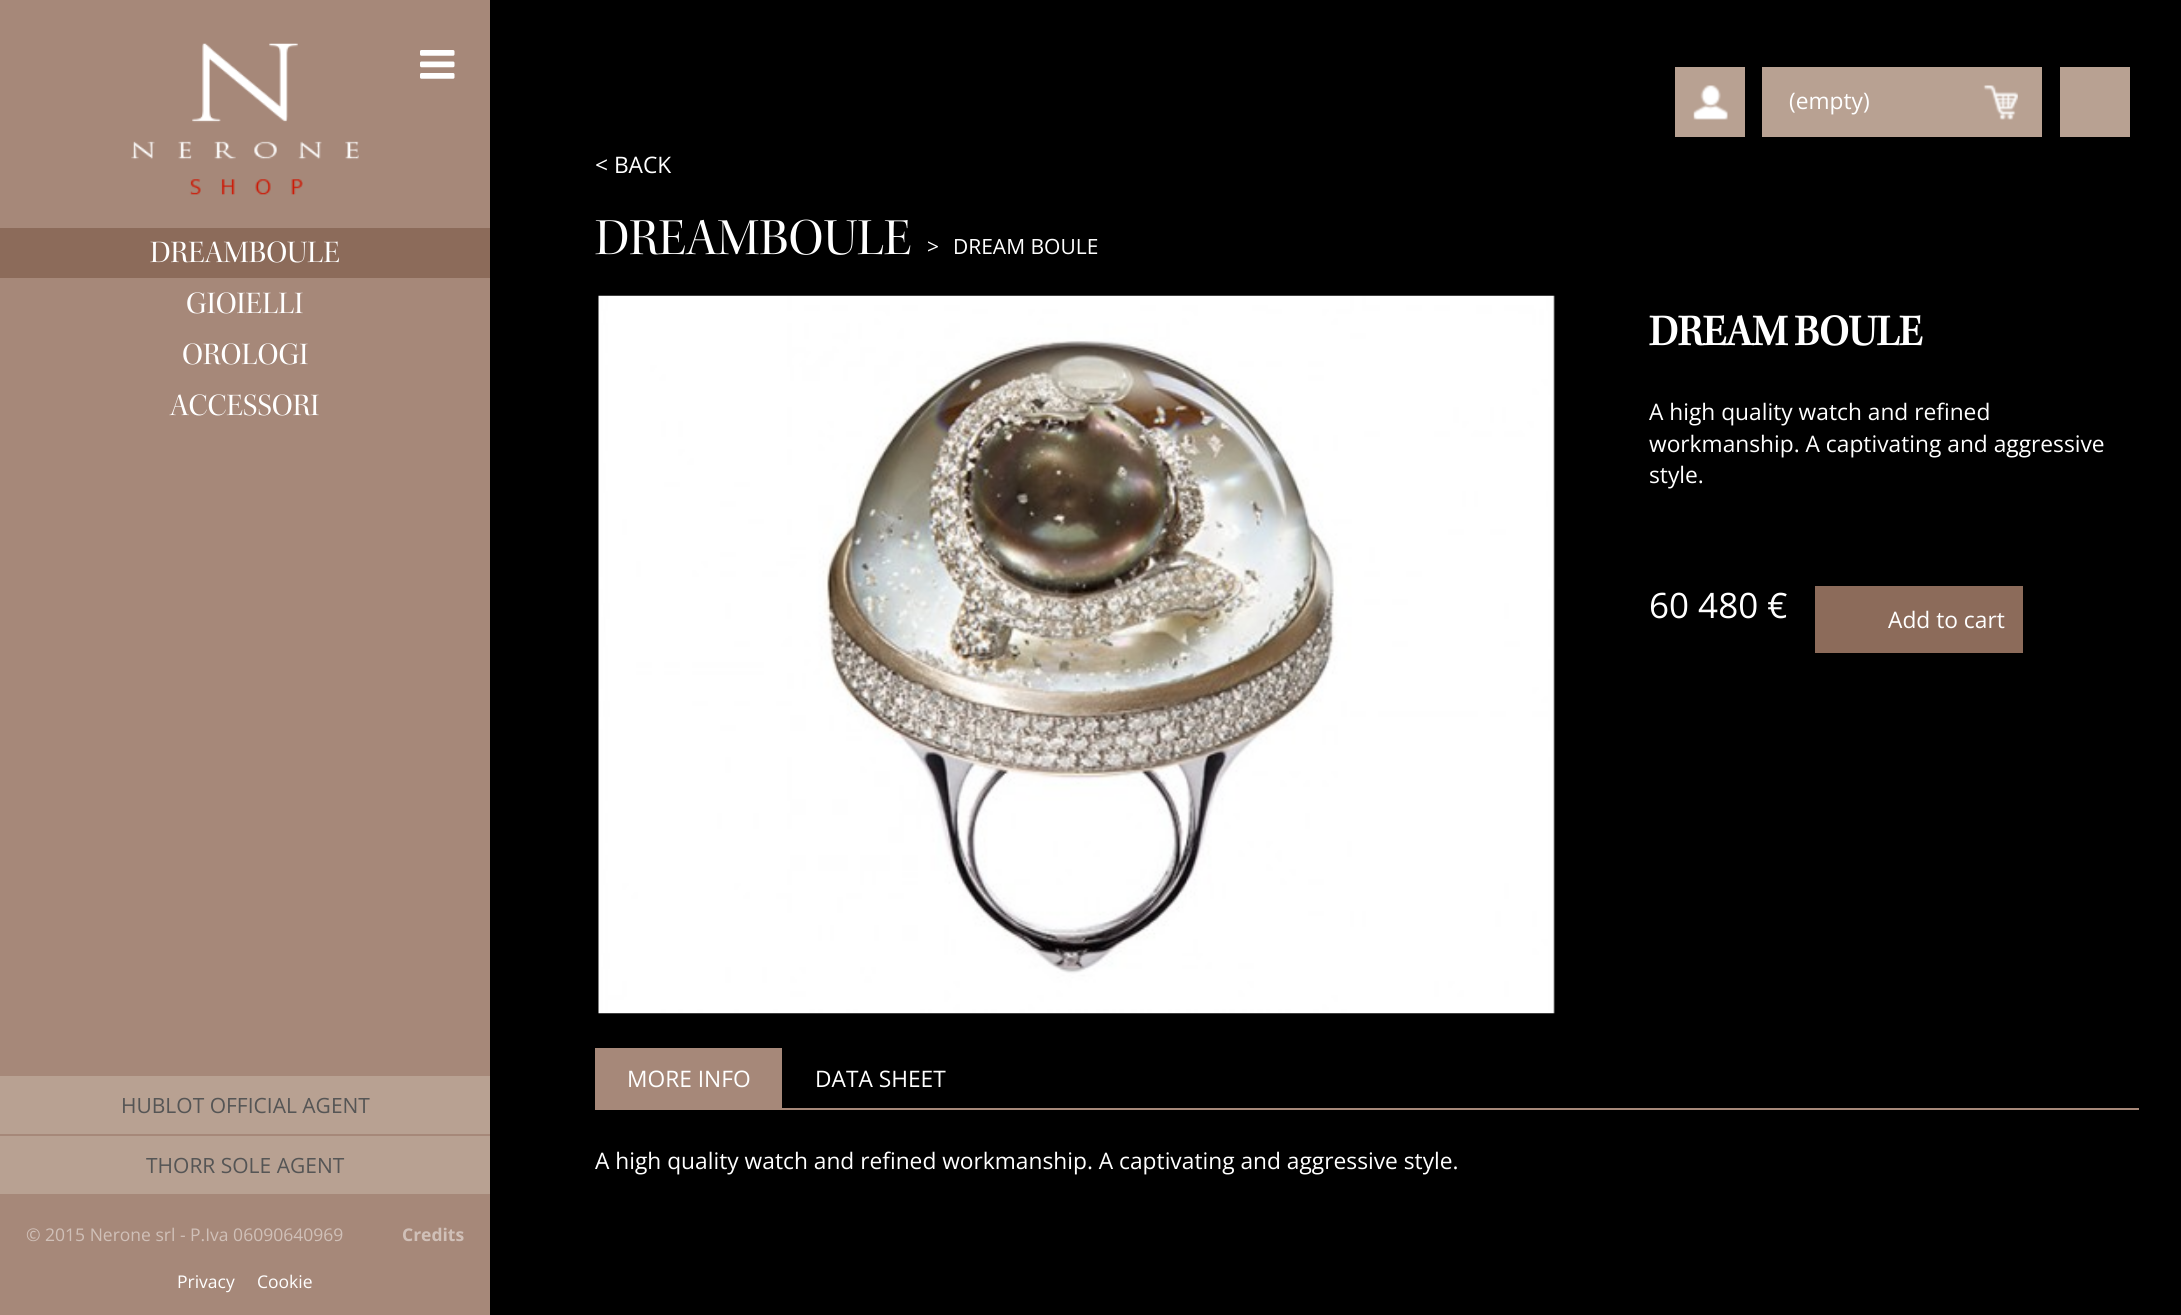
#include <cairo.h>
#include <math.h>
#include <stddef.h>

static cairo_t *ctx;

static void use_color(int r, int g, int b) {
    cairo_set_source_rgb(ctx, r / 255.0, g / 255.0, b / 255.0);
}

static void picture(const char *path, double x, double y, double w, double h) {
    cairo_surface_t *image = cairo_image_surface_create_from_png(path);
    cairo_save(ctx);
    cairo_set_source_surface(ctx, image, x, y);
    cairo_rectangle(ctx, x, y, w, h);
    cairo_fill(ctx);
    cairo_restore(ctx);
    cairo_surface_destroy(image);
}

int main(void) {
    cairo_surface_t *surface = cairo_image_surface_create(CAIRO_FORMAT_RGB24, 2181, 1315);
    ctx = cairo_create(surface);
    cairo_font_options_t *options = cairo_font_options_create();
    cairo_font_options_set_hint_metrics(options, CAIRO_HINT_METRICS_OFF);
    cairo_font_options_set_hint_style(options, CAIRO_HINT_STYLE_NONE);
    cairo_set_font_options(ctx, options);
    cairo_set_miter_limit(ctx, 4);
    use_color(0, 0, 0);
    cairo_paint(ctx);
    use_color(184, 161, 146);
    cairo_rectangle(ctx, 1675, 67, 70, 70);
    cairo_fill(ctx);
    picture("img1.png", 1693, 85, 35, 35);
    cairo_rectangle(ctx, 1762, 67, 280, 70);
    cairo_fill(ctx);
    picture("img2.png", 1983, 85, 35, 35);
    cairo_select_font_face(ctx, "Open Sans", CAIRO_FONT_SLANT_NORMAL, CAIRO_FONT_WEIGHT_NORMAL);
    cairo_set_font_size(ctx, 22.75);
    use_color(255, 255, 255);
    cairo_move_to(ctx, 1789, 109);
    cairo_show_text(ctx, "(empty)");
    use_color(184, 161, 146);
    cairo_rectangle(ctx, 2060, 67, 70, 70);
    cairo_fill(ctx);
    use_color(166, 136, 121);
    cairo_rectangle(ctx, 0, 0, 490, 1315);
    cairo_fill(ctx);
    picture("img3.png", 131, 43, 228, 152);
    picture("img4.png", 420, 50, 35, 29);
    use_color(140, 107, 90);
    cairo_rectangle(ctx, 0, 228, 490, 50);
    cairo_fill(ctx);
    cairo_select_font_face(ctx, "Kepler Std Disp", CAIRO_FONT_SLANT_NORMAL, CAIRO_FONT_WEIGHT_NORMAL);
    cairo_set_font_size(ctx, 31.5);
    use_color(255, 255, 255);
    cairo_move_to(ctx, 150, 262);
    cairo_show_text(ctx, "DREAMBOULE");
    cairo_move_to(ctx, 186, 313);
    cairo_show_text(ctx, "GIOIELLI");
    cairo_move_to(ctx, 182, 364);
    cairo_show_text(ctx, "OROLOGI");
    cairo_move_to(ctx, 170, 415);
    cairo_show_text(ctx, "ACCESSORI");
    use_color(184, 161, 146);
    cairo_rectangle(ctx, 0, 1076, 490, 58);
    cairo_fill(ctx);
    cairo_select_font_face(ctx, "Open Sans", CAIRO_FONT_SLANT_NORMAL, CAIRO_FONT_WEIGHT_NORMAL);
    cairo_set_font_size(ctx, 21);
    use_color(85, 85, 85);
    cairo_move_to(ctx, 121, 1113);
    cairo_show_text(ctx, "HUBLOT OFFICIAL AGENT");
    use_color(184, 161, 146);
    cairo_rectangle(ctx, 0, 1136, 490, 58);
    cairo_fill(ctx);
    use_color(85, 85, 85);
    cairo_move_to(ctx, 146, 1173);
    cairo_show_text(ctx, "THORR SOLE AGENT");
    cairo_set_font_size(ctx, 17.5);
    use_color(208, 192, 184);
    cairo_move_to(ctx, 26, 1241);
    cairo_show_text(ctx, "© 2015 Nerone srl - P.Iva 06090640969");
    cairo_select_font_face(ctx, "Open Sans", CAIRO_FONT_SLANT_NORMAL, CAIRO_FONT_WEIGHT_BOLD);
    cairo_move_to(ctx, 402, 1241);
    cairo_show_text(ctx, "Credits");
    cairo_select_font_face(ctx, "Open Sans", CAIRO_FONT_SLANT_NORMAL, CAIRO_FONT_WEIGHT_NORMAL);
    use_color(255, 255, 255);
    cairo_move_to(ctx, 177, 1288);
    cairo_show_text(ctx, "Privacy");
    cairo_move_to(ctx, 257, 1288);
    cairo_show_text(ctx, "Cookie");
    cairo_set_font_size(ctx, 22.75);
    cairo_move_to(ctx, 595, 173);
    cairo_show_text(ctx, "< BACK");
    cairo_select_font_face(ctx, "Kepler Std Disp", CAIRO_FONT_SLANT_NORMAL, CAIRO_FONT_WEIGHT_NORMAL);
    cairo_set_font_size(ctx, 52.5);
    cairo_move_to(ctx, 595, 254);
    cairo_show_text(ctx, "DREAMBOULE");
    cairo_select_font_face(ctx, "Open Sans", CAIRO_FONT_SLANT_NORMAL, CAIRO_FONT_WEIGHT_NORMAL);
    cairo_set_font_size(ctx, 21);
    cairo_move_to(ctx, 927, 254);
    cairo_show_text(ctx, ">");
    cairo_move_to(ctx, 953, 254);
    cairo_show_text(ctx, "DREAM BOULE");
    picture("img5.png", 598, 295, 957, 719);
    cairo_select_font_face(ctx, "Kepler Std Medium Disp", CAIRO_FONT_SLANT_NORMAL, CAIRO_FONT_WEIGHT_BOLD);
    cairo_set_font_size(ctx, 43.75);
    cairo_move_to(ctx, 1649, 345);
    cairo_show_text(ctx, "DREAM BOULE");
    cairo_select_font_face(ctx, "Open Sans", CAIRO_FONT_SLANT_NORMAL, CAIRO_FONT_WEIGHT_NORMAL);
    cairo_set_font_size(ctx, 22.75);
    cairo_move_to(ctx, 1649, 420);
    cairo_show_text(ctx, "A high quality watch and refined");
    cairo_move_to(ctx, 1649, 452);
    cairo_show_text(ctx, "workmanship. A captivating and aggressive");
    cairo_move_to(ctx, 1649, 483);
    cairo_show_text(ctx, "style.");
    cairo_set_font_size(ctx, 35);
    cairo_move_to(ctx, 1649, 618);
    cairo_show_text(ctx, "60 480 €");
    use_color(140, 107, 90);
    cairo_rectangle(ctx, 1815, 586, 208, 67);
    cairo_fill(ctx);
    cairo_set_font_size(ctx, 22.75);
    use_color(255, 255, 255);
    cairo_move_to(ctx, 1888, 628);
    cairo_show_text(ctx, "Add to cart");
    use_color(166, 136, 121);
    cairo_rectangle(ctx, 595, 1108, 1544, 2);
    cairo_fill(ctx);
    cairo_rectangle(ctx, 595, 1048, 187, 60);
    cairo_fill(ctx);
    use_color(255, 255, 255);
    cairo_move_to(ctx, 627, 1087);
    cairo_show_text(ctx, "MORE INFO");
    cairo_move_to(ctx, 815, 1087);
    cairo_show_text(ctx, "DATA SHEET");
    cairo_move_to(ctx, 595, 1169);
    cairo_show_text(ctx, "A high quality watch and refined workmanship. A captivating and aggressive style.");
    cairo_surface_write_to_png(surface, "result.png");
    cairo_font_options_destroy(options);
    cairo_destroy(ctx);
    cairo_surface_destroy(surface);
    return 0;
}
